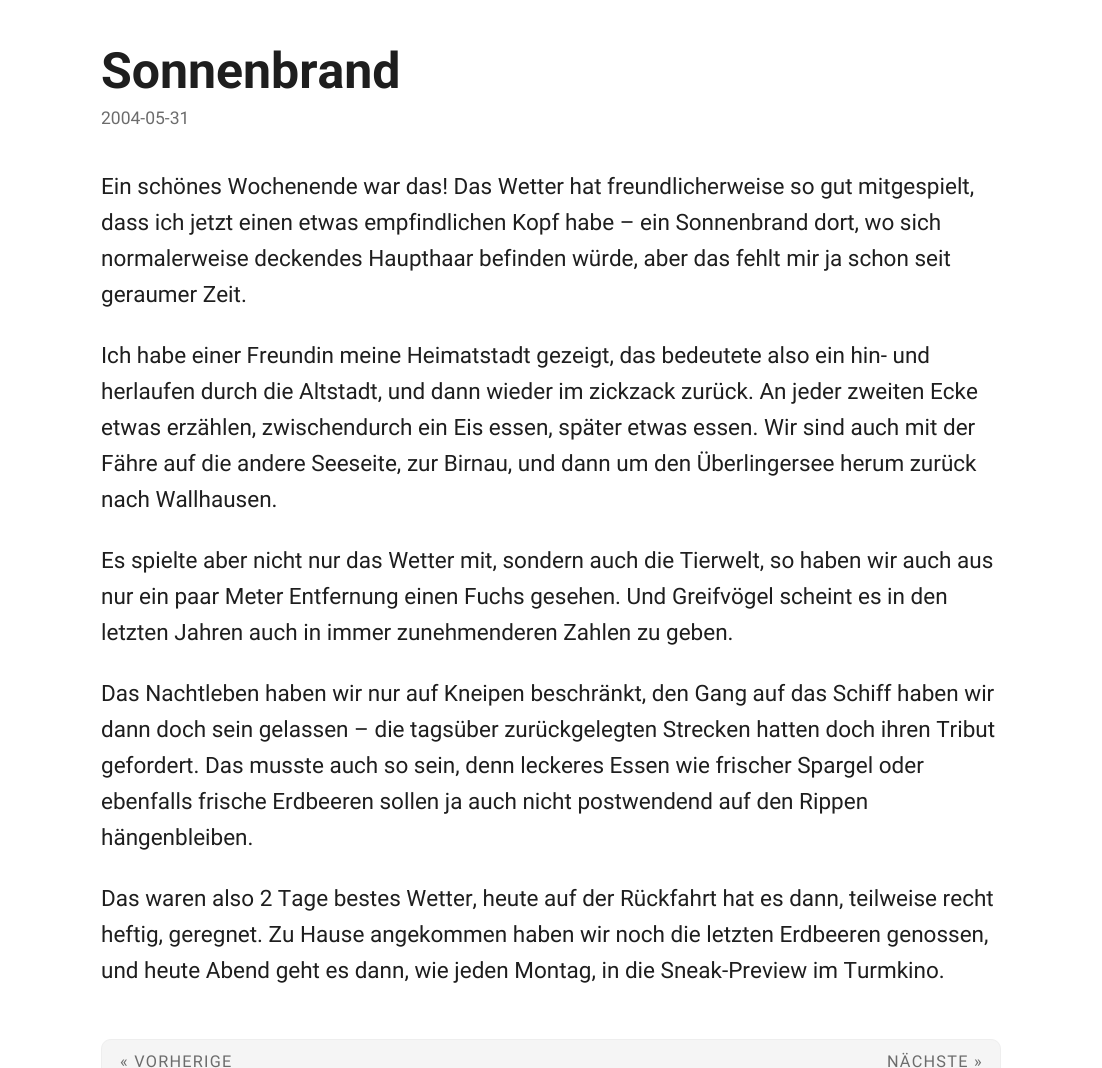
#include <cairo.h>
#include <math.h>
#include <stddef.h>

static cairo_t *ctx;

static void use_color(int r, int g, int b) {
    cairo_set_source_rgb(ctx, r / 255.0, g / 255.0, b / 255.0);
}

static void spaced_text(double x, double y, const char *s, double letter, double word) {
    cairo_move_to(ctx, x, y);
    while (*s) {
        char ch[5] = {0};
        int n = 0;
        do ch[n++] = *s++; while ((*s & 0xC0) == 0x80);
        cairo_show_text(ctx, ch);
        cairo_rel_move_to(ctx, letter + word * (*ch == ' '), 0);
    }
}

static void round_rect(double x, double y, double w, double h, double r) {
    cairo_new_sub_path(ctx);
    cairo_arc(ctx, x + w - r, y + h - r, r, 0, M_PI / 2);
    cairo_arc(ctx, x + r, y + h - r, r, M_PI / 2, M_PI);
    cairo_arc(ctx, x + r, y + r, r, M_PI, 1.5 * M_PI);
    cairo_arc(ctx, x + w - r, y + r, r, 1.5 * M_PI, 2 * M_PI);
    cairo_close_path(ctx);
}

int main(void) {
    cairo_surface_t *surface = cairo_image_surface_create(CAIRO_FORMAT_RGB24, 1102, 1068);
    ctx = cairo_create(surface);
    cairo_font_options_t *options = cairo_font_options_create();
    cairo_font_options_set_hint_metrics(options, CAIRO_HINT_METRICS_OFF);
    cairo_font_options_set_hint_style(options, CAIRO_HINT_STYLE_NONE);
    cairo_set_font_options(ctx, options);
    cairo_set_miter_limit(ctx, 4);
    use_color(255, 255, 255);
    cairo_paint(ctx);
    cairo_select_font_face(ctx, "Roboto", CAIRO_FONT_SLANT_NORMAL, CAIRO_FONT_WEIGHT_BOLD);
    cairo_set_font_size(ctx, 50);
    use_color(30, 30, 30);
    cairo_move_to(ctx, 101, 88);
    cairo_show_text(ctx, "Sonnenbrand");
    cairo_select_font_face(ctx, "Roboto", CAIRO_FONT_SLANT_NORMAL, CAIRO_FONT_WEIGHT_NORMAL);
    cairo_set_font_size(ctx, 17.5);
    use_color(108, 108, 108);
    cairo_move_to(ctx, 101, 124);
    cairo_show_text(ctx, "2004-05-31");
    cairo_set_font_size(ctx, 22.5);
    use_color(30, 30, 30);
    cairo_move_to(ctx, 101, 194);
    cairo_show_text(ctx, "Ein schönes Wochenende war das! Das Wetter hat freundlicherweise so gut mitgespielt,");
    cairo_move_to(ctx, 101, 230);
    cairo_show_text(ctx, "dass ich jetzt einen etwas empfindlichen Kopf habe – ein Sonnenbrand dort, wo sich");
    cairo_move_to(ctx, 101, 266);
    cairo_show_text(ctx, "normalerweise deckendes Haupthaar befinden würde, aber das fehlt mir ja schon seit");
    cairo_move_to(ctx, 101, 302);
    cairo_show_text(ctx, "geraumer Zeit.");
    cairo_move_to(ctx, 101, 363);
    cairo_show_text(ctx, "Ich habe einer Freundin meine Heimatstadt gezeigt, das bedeutete also ein hin- und");
    cairo_move_to(ctx, 101, 399);
    cairo_show_text(ctx, "herlaufen durch die Altstadt, und dann wieder im zickzack zurück. An jeder zweiten Ecke");
    cairo_move_to(ctx, 101, 435);
    cairo_show_text(ctx, "etwas erzählen, zwischendurch ein Eis essen, später etwas essen. Wir sind auch mit der");
    cairo_move_to(ctx, 101, 471);
    cairo_show_text(ctx, "Fähre auf die andere Seeseite, zur Birnau, und dann um den Überlingersee herum zurück");
    cairo_move_to(ctx, 101, 507);
    cairo_show_text(ctx, "nach Wallhausen.");
    cairo_move_to(ctx, 101, 568);
    cairo_show_text(ctx, "Es spielte aber nicht nur das Wetter mit, sondern auch die Tierwelt, so haben wir auch aus");
    cairo_move_to(ctx, 101, 604);
    cairo_show_text(ctx, "nur ein paar Meter Entfernung einen Fuchs gesehen. Und Greifvögel scheint es in den");
    cairo_move_to(ctx, 101, 640);
    cairo_show_text(ctx, "letzten Jahren auch in immer zunehmenderen Zahlen zu geben.");
    cairo_move_to(ctx, 101, 701);
    cairo_show_text(ctx, "Das Nachtleben haben wir nur auf Kneipen beschränkt, den Gang auf das Schiff haben wir");
    cairo_move_to(ctx, 101, 737);
    cairo_show_text(ctx, "dann doch sein gelassen – die tagsüber zurückgelegten Strecken hatten doch ihren Tribut");
    cairo_move_to(ctx, 101, 773);
    cairo_show_text(ctx, "gefordert. Das musste auch so sein, denn leckeres Essen wie frischer Spargel oder");
    cairo_move_to(ctx, 101, 809);
    cairo_show_text(ctx, "ebenfalls frische Erdbeeren sollen ja auch nicht postwendend auf den Rippen");
    cairo_move_to(ctx, 101, 845);
    cairo_show_text(ctx, "hängenbleiben.");
    cairo_move_to(ctx, 101, 906);
    cairo_show_text(ctx, "Das waren also 2 Tage bestes Wetter, heute auf der Rückfahrt hat es dann, teilweise recht");
    cairo_move_to(ctx, 101, 942);
    cairo_show_text(ctx, "heftig, geregnet. Zu Hause angekommen haben wir noch die letzten Erdbeeren genossen,");
    cairo_move_to(ctx, 101, 978);
    cairo_show_text(ctx, "und heute Abend geht es dann, wie jeden Montag, in die Sneak-Preview im Turmkino.");
    use_color(245, 245, 245);
    round_rect(101.5, 1039.5, 899, 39, 9.5);
    cairo_fill_preserve(ctx);
    use_color(238, 238, 238);
    cairo_set_line_width(ctx, 1);
    cairo_stroke(ctx);
    cairo_set_font_size(ctx, 16.25);
    use_color(108, 108, 108);
    spaced_text(120, 1067, "« VORHERIGE", 1.25, 0);
    spaced_text(887, 1067, "NÄCHSTE »", 1.25, 0);
    cairo_surface_write_to_png(surface, "result.png");
    cairo_font_options_destroy(options);
    cairo_destroy(ctx);
    cairo_surface_destroy(surface);
    return 0;
}
